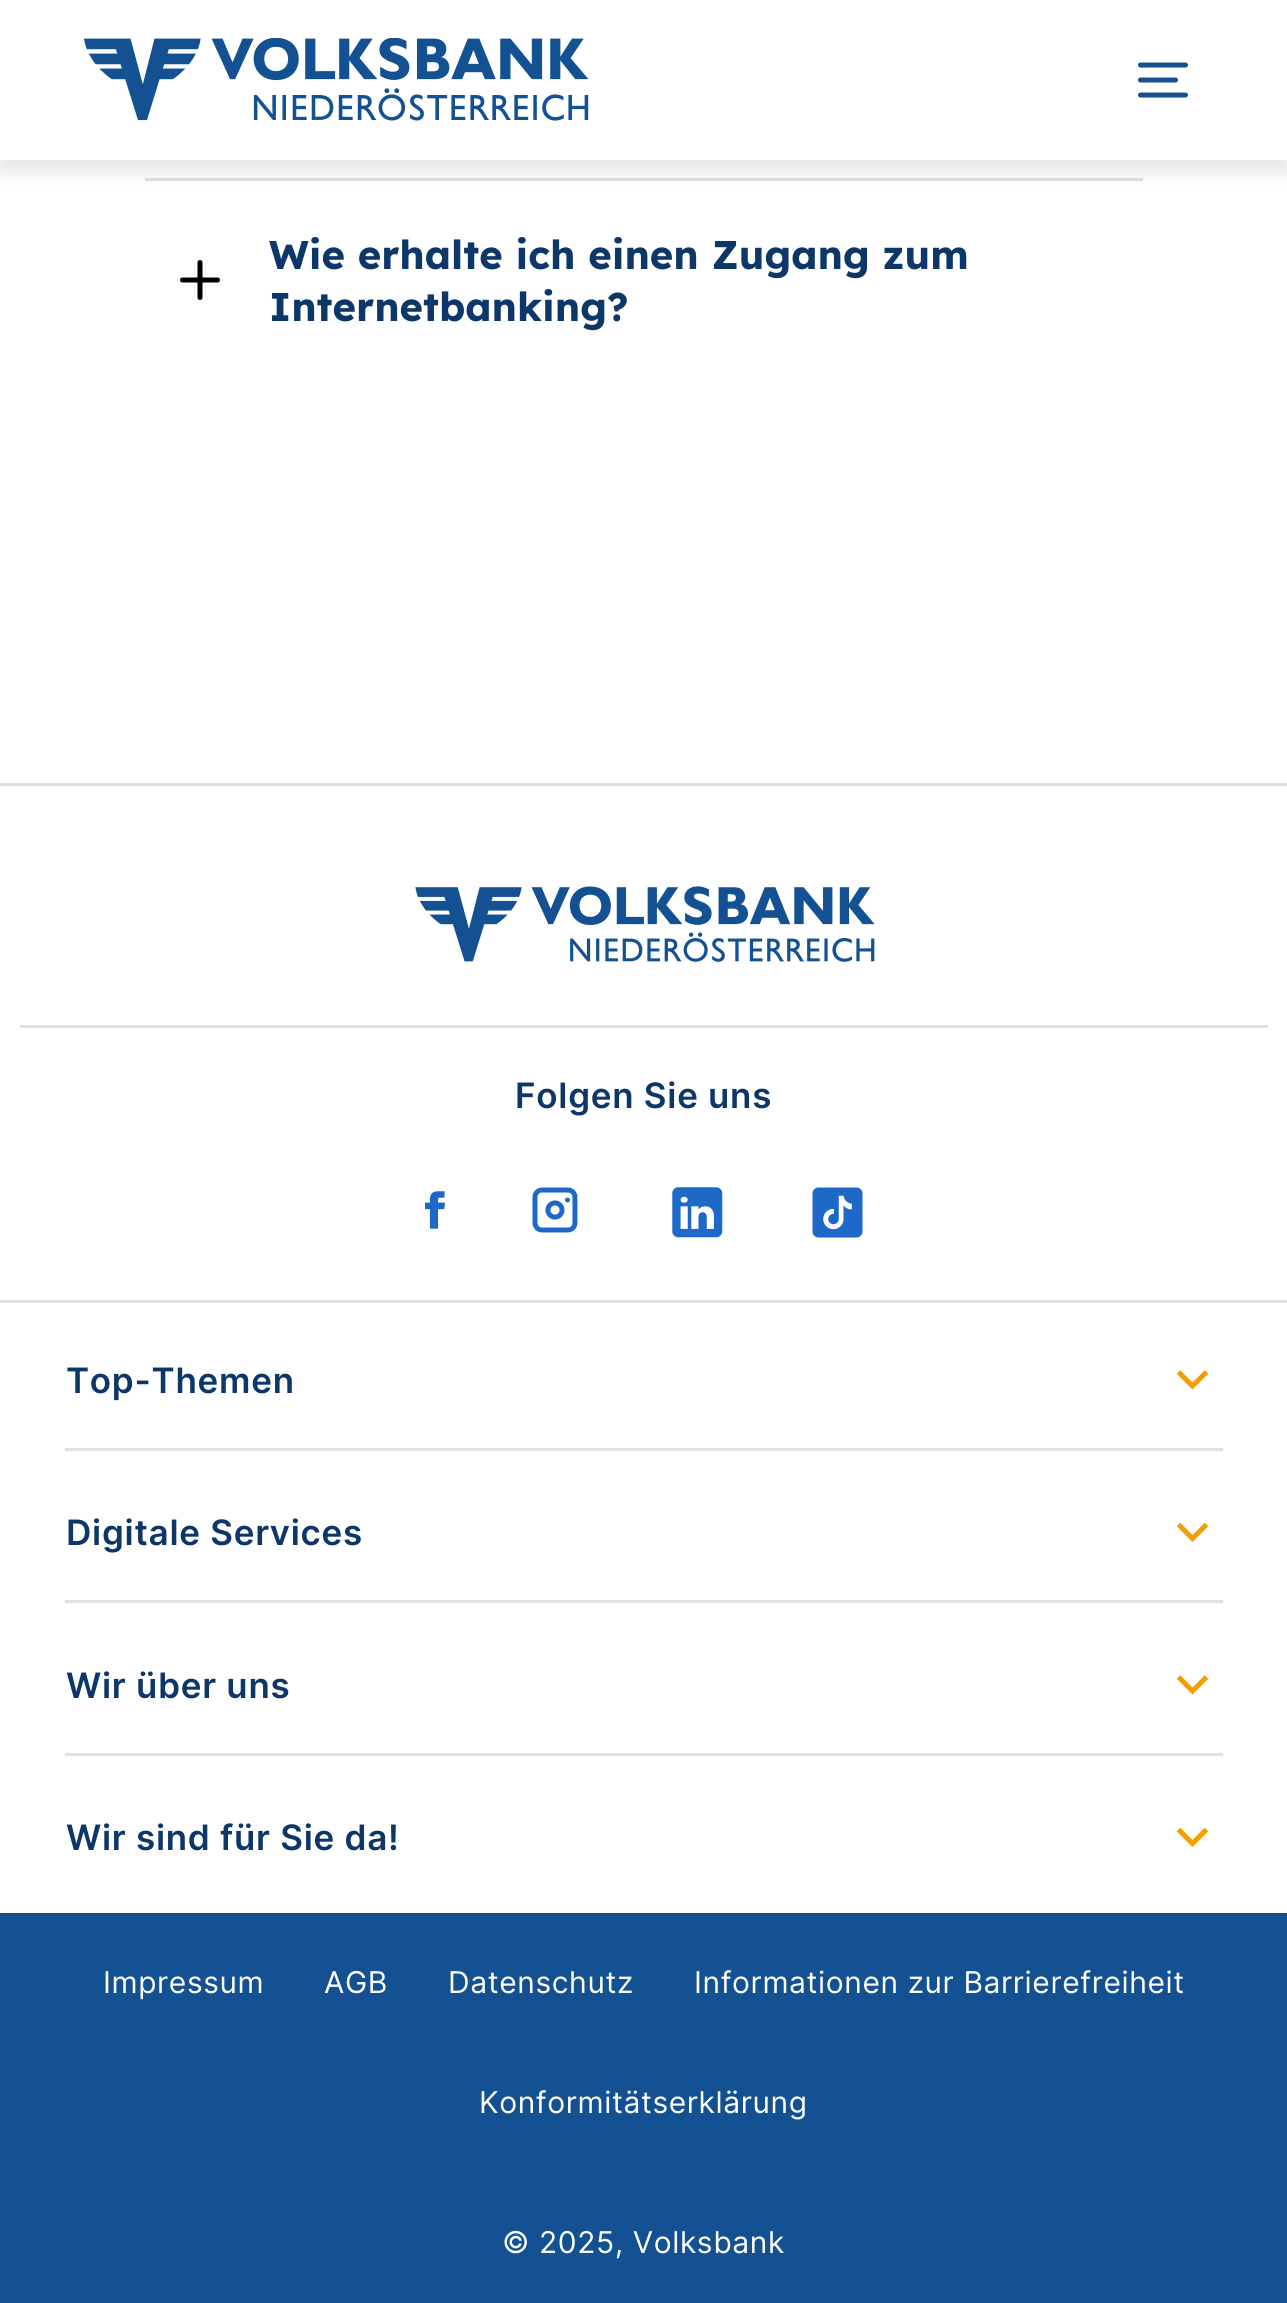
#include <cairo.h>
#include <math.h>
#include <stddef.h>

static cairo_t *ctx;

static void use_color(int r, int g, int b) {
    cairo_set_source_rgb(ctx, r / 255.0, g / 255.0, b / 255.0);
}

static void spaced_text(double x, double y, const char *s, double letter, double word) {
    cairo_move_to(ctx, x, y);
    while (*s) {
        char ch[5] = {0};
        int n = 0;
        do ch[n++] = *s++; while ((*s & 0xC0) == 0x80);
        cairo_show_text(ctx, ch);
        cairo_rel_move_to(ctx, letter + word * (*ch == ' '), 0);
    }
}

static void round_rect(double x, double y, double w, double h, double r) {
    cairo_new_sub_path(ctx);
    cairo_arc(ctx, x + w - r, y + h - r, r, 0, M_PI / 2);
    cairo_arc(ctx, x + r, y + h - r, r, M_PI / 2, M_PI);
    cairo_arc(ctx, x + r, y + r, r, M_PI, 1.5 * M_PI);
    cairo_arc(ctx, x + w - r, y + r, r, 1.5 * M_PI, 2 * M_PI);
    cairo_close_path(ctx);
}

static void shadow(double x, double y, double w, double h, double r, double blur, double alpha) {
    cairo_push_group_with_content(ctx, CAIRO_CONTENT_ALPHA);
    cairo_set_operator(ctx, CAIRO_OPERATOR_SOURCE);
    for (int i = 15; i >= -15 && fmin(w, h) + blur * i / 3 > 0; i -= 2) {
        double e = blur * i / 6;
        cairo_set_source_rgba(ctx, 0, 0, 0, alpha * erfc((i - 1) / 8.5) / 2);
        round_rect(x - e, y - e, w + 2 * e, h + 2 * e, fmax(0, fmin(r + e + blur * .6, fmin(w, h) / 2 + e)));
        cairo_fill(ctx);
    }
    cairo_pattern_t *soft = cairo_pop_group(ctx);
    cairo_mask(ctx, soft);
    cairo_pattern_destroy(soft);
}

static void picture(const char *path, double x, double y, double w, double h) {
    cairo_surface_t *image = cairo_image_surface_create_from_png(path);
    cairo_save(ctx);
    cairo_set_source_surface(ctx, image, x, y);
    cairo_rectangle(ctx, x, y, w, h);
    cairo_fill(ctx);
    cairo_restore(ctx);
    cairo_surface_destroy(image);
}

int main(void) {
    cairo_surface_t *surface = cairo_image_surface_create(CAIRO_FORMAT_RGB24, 1287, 2303);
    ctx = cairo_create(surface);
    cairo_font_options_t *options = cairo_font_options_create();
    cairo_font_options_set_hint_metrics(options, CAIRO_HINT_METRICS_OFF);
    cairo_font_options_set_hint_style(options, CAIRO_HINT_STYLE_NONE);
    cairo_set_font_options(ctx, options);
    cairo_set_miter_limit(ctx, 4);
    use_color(255, 255, 255);
    cairo_paint(ctx);
    use_color(224, 224, 224);
    cairo_rectangle(ctx, 145, 178, 998, 3);
    cairo_fill(ctx);
    use_color(0, 0, 0);
    shadow(0, 10, 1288, 160, 0, 11, 0.12);
    use_color(255, 255, 255);
    cairo_rectangle(ctx, 0, 0, 1287, 160);
    cairo_fill(ctx);
    picture("img1.png", 84, 38, 505, 83);
    picture("img2.png", 1138, 62, 50, 36);
    picture("img3.png", 180, 260, 40, 40);
    cairo_select_font_face(ctx, "Lexend", CAIRO_FONT_SLANT_NORMAL, CAIRO_FONT_WEIGHT_BOLD);
    cairo_set_font_size(ctx, 40);
    use_color(13, 55, 104);
    cairo_move_to(ctx, 269, 269);
    cairo_show_text(ctx, "Wie erhalte ich einen Zugang zum");
    cairo_move_to(ctx, 269, 321);
    cairo_show_text(ctx, "Internetbanking?");
    use_color(224, 224, 224);
    cairo_rectangle(ctx, 0, 783, 1287, 3);
    cairo_fill(ctx);
    cairo_rectangle(ctx, 0, 1300, 1287, 3);
    cairo_fill(ctx);
    cairo_rectangle(ctx, 20, 1025, 1248, 3);
    cairo_fill(ctx);
    picture("img4.png", 415, 886, 460, 76);
    cairo_select_font_face(ctx, "Inter SemiBold", CAIRO_FONT_SLANT_NORMAL, CAIRO_FONT_WEIGHT_NORMAL);
    cairo_set_font_size(ctx, 35);
    use_color(13, 55, 104);
    spaced_text(515, 1108, "Folgen Sie uns", 0.75, 0);
    picture("img5.png", 425, 1191, 20, 38);
    picture("img6.png", 532, 1187, 46, 46);
    picture("img7.png", 672, 1187, 51, 51);
    picture("img8.png", 812, 1187, 51, 51);
    spaced_text(66, 1393, "Top-Themen", 0.75, 0);
    cairo_new_path(ctx);
    cairo_move_to(ctx, 1178.5, 1372);
    cairo_line_to(ctx, 1192.5, 1386);
    cairo_line_to(ctx, 1206.5, 1372);
    use_color(245, 157, 0);
    cairo_set_line_width(ctx, 5);
    cairo_stroke(ctx);
    use_color(224, 224, 224);
    cairo_rectangle(ctx, 65, 1448, 1158, 3);
    cairo_fill(ctx);
    use_color(13, 55, 104);
    spaced_text(66, 1545, "Digitale Services", 0.75, 0);
    cairo_new_path(ctx);
    cairo_move_to(ctx, 1178.5, 1524.5);
    cairo_line_to(ctx, 1192.5, 1538.5);
    cairo_line_to(ctx, 1206.5, 1524.5);
    use_color(245, 157, 0);
    cairo_stroke(ctx);
    use_color(224, 224, 224);
    cairo_rectangle(ctx, 65, 1600, 1158, 3);
    cairo_fill(ctx);
    use_color(13, 55, 104);
    spaced_text(66, 1698, "Wir über uns", 0.75, 0);
    cairo_new_path(ctx);
    cairo_move_to(ctx, 1178.5, 1677);
    cairo_line_to(ctx, 1192.5, 1691);
    cairo_line_to(ctx, 1206.5, 1677);
    use_color(245, 157, 0);
    cairo_stroke(ctx);
    use_color(224, 224, 224);
    cairo_rectangle(ctx, 65, 1753, 1158, 3);
    cairo_fill(ctx);
    use_color(13, 55, 104);
    spaced_text(66, 1850, "Wir sind für Sie da!", 0.75, 0);
    cairo_new_path(ctx);
    cairo_move_to(ctx, 1178.5, 1829.5);
    cairo_line_to(ctx, 1192.5, 1843.5);
    cairo_line_to(ctx, 1206.5, 1829.5);
    use_color(245, 157, 0);
    cairo_stroke(ctx);
    use_color(19, 81, 146);
    cairo_rectangle(ctx, 0, 1913, 1287, 390);
    cairo_fill(ctx);
    cairo_select_font_face(ctx, "Inter", CAIRO_FONT_SLANT_NORMAL, CAIRO_FONT_WEIGHT_NORMAL);
    cairo_set_font_size(ctx, 30);
    use_color(255, 255, 255);
    spaced_text(103, 1993, "Impressum", 0.6, 0);
    spaced_text(324, 1993, "AGB", 0.6, 0);
    spaced_text(448, 1993, "Datenschutz", 0.6, 0);
    spaced_text(694, 1993, "Informationen zur Barrierefreiheit", 0.6, 0);
    spaced_text(479, 2113, "Konformitätserklärung", 0.6, 0);
    spaced_text(502, 2253, "© 2025, Volksbank", 0.6, 0);
    cairo_surface_write_to_png(surface, "result.png");
    cairo_font_options_destroy(options);
    cairo_destroy(ctx);
    cairo_surface_destroy(surface);
    return 0;
}
